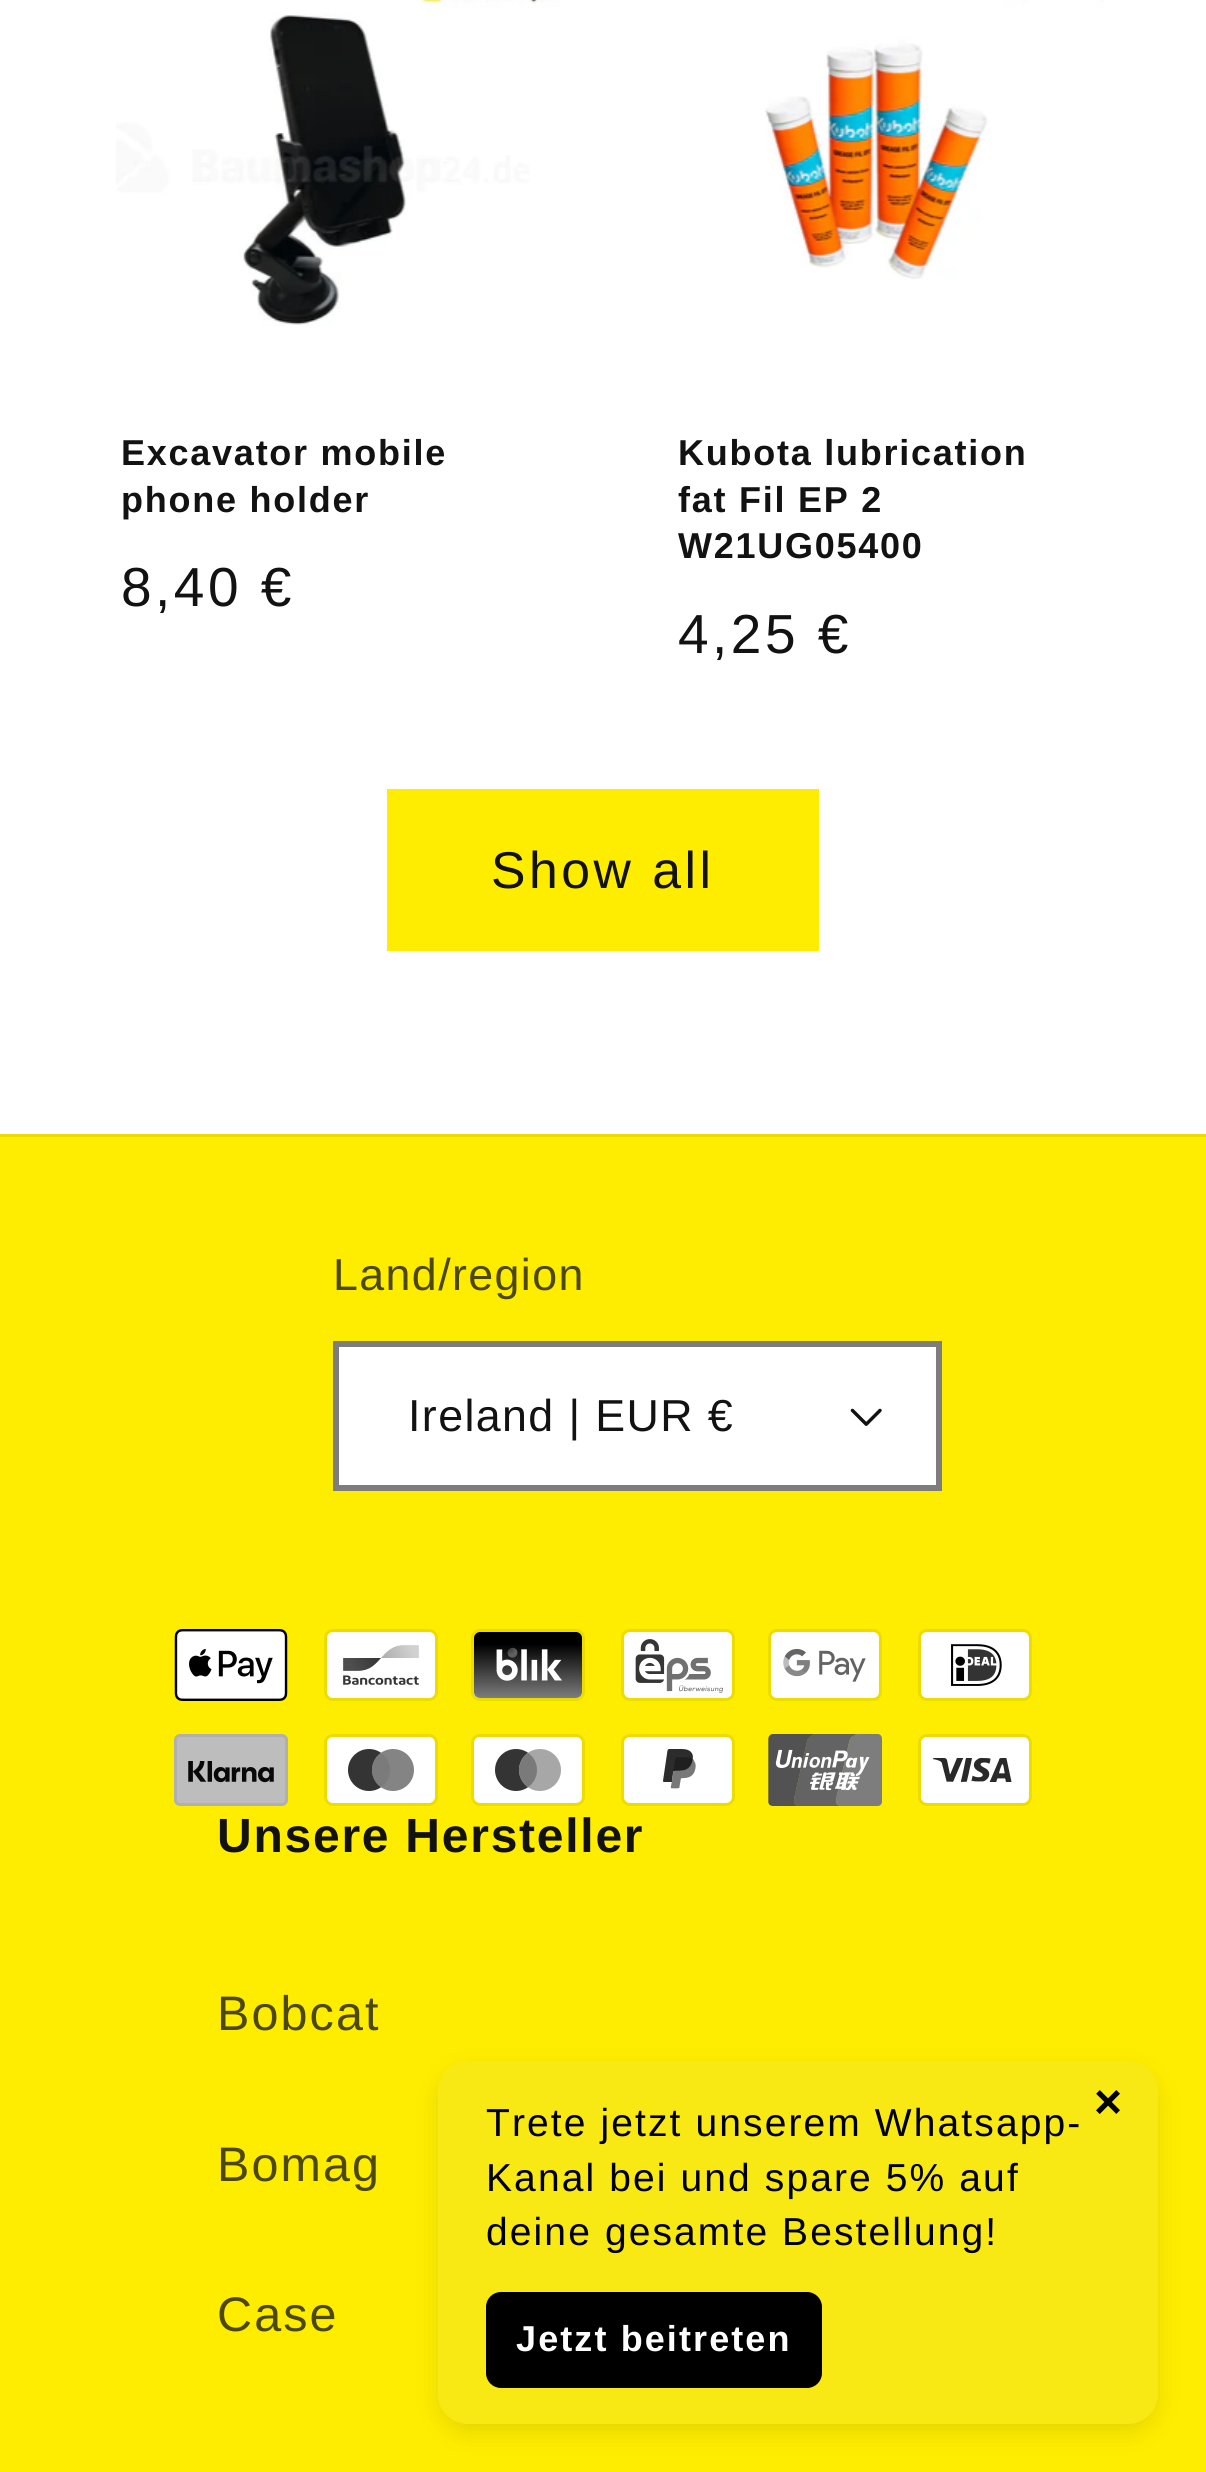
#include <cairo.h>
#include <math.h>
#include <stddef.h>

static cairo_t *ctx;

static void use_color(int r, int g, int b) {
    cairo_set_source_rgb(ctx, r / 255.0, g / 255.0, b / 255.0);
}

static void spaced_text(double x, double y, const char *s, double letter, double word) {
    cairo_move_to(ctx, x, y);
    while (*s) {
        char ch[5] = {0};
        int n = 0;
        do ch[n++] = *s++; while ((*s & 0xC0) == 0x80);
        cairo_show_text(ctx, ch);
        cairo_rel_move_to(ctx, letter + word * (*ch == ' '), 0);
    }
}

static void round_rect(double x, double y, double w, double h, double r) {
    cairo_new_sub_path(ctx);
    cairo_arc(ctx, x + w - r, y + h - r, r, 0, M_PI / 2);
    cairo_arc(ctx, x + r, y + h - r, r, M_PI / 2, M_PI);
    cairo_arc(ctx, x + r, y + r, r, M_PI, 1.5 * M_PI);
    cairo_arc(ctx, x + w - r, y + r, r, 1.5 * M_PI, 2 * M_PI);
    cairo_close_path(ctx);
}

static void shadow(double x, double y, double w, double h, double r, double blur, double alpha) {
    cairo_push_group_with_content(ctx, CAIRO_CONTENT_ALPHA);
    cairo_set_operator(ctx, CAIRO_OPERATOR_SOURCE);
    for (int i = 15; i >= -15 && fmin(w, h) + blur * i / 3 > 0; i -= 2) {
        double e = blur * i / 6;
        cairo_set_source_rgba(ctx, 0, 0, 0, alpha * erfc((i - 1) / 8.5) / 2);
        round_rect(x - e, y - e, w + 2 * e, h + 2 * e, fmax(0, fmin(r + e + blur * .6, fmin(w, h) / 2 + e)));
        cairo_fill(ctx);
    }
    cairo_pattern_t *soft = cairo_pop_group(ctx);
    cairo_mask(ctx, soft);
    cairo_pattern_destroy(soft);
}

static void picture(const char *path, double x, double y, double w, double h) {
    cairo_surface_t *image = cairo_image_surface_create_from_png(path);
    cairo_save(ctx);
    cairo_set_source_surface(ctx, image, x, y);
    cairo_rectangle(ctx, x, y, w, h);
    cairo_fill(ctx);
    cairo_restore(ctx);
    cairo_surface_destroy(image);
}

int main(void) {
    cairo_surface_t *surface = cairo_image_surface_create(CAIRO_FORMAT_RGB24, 1206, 2472);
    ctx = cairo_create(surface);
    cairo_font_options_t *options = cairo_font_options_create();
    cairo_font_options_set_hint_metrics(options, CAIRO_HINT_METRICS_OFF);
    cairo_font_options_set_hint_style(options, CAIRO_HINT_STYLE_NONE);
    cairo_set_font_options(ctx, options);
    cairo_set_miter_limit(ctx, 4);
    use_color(255, 255, 255);
    cairo_paint(ctx);
    picture("img1.png", 116, 0, 443, 326);
    cairo_select_font_face(ctx, "Liberation Sans", CAIRO_FONT_SLANT_NORMAL, CAIRO_FONT_WEIGHT_BOLD);
    cairo_set_font_size(ctx, 36);
    use_color(18, 18, 18);
    spaced_text(121, 465, "Excavator mobile", 1.75, 0);
    spaced_text(121, 512, "phone holder", 1.75, 0);
    cairo_select_font_face(ctx, "Liberation Sans", CAIRO_FONT_SLANT_NORMAL, CAIRO_FONT_WEIGHT_NORMAL);
    cairo_set_font_size(ctx, 55);
    spaced_text(121, 606, "8,40 €", 3.5, 0);
    picture("img2.png", 765, 0, 339, 280);
    cairo_select_font_face(ctx, "Liberation Sans", CAIRO_FONT_SLANT_NORMAL, CAIRO_FONT_WEIGHT_BOLD);
    cairo_set_font_size(ctx, 36);
    spaced_text(678, 465, "Kubota lubrication", 1.75, 0);
    spaced_text(678, 512, "fat Fil EP 2", 1.75, 0);
    spaced_text(678, 558, "W21UG05400", 1.75, 0);
    cairo_select_font_face(ctx, "Liberation Sans", CAIRO_FONT_SLANT_NORMAL, CAIRO_FONT_WEIGHT_NORMAL);
    cairo_set_font_size(ctx, 55);
    spaced_text(678, 653, "4,25 €", 3.5, 0);
    use_color(255, 237, 0);
    cairo_rectangle(ctx, 387, 789, 432, 162);
    cairo_fill(ctx);
    cairo_set_font_size(ctx, 51.75);
    use_color(18, 18, 18);
    spaced_text(491, 888, "Show all", 3.5, 0);
    use_color(255, 237, 0);
    cairo_rectangle(ctx, 0, 1137, 1206, 1335);
    cairo_fill(ctx);
    use_color(236, 219, 1);
    cairo_rectangle(ctx, 0, 1134, 1206, 3);
    cairo_fill(ctx);
    cairo_set_font_size(ctx, 44.75);
    use_color(77, 73, 14);
    spaced_text(333, 1290, "Land/region", 1.4, 0);
    use_color(255, 255, 255);
    cairo_rectangle(ctx, 339, 1347, 597, 138);
    cairo_fill(ctx);
    picture("img3.png", 850, 1408, 32, 18);
    cairo_rectangle(ctx, 336, 1344, 603, 144);
    use_color(125, 125, 125);
    cairo_set_line_width(ctx, 6);
    cairo_stroke(ctx);
    use_color(18, 18, 18);
    spaced_text(408, 1431, "Ireland | EUR €", 1.4, 0);
    picture("img4.png", 174, 1629, 114, 72);
    picture("img5.png", 324, 1629, 114, 72);
    picture("img6.png", 471, 1629, 114, 72);
    picture("img7.png", 621, 1629, 114, 72);
    picture("img8.png", 768, 1629, 114, 72);
    picture("img9.png", 918, 1629, 114, 72);
    picture("img10.png", 174, 1734, 114, 72);
    picture("img11.png", 324, 1734, 114, 72);
    picture("img12.png", 471, 1734, 114, 72);
    picture("img13.png", 621, 1734, 114, 72);
    picture("img14.png", 768, 1734, 114, 72);
    picture("img15.png", 918, 1734, 114, 72);
    cairo_select_font_face(ctx, "Liberation Sans", CAIRO_FONT_SLANT_NORMAL, CAIRO_FONT_WEIGHT_BOLD);
    cairo_set_font_size(ctx, 48);
    spaced_text(217, 1852, "Unsere Hersteller", 1.75, 0);
    cairo_select_font_face(ctx, "Liberation Sans", CAIRO_FONT_SLANT_NORMAL, CAIRO_FONT_WEIGHT_NORMAL);
    cairo_set_font_size(ctx, 48.5);
    use_color(77, 73, 14);
    spaced_text(217, 2030, "Bobcat", 2.1, 0);
    spaced_text(217, 2181, "Bomag", 2.1, 0);
    spaced_text(217, 2331, "Case", 2.1, 0);
    use_color(0, 0, 0);
    shadow(438, 2070, 720, 363, 30, 12, 0.1);
    use_color(248, 233, 20);
    round_rect(438, 2061, 720, 363, 30);
    cairo_fill(ctx);
    cairo_select_font_face(ctx, "Liberation Sans", CAIRO_FONT_SLANT_NORMAL, CAIRO_FONT_WEIGHT_BOLD);
    cairo_set_font_size(ctx, 48);
    use_color(0, 0, 0);
    cairo_move_to(ctx, 1094, 2118);
    cairo_show_text(ctx, "×");
    cairo_select_font_face(ctx, "Liberation Sans", CAIRO_FONT_SLANT_NORMAL, CAIRO_FONT_WEIGHT_NORMAL);
    cairo_set_font_size(ctx, 39);
    spaced_text(486, 2136, "Trete jetzt unserem Whatsapp-", 2.1, 0);
    spaced_text(486, 2191, "Kanal bei und spare 5% auf", 2.1, 0);
    spaced_text(486, 2245, "deine gesamte Bestellung!", 2.1, 0);
    round_rect(486, 2292, 336, 96, 15);
    cairo_fill(ctx);
    cairo_select_font_face(ctx, "Liberation Sans", CAIRO_FONT_SLANT_NORMAL, CAIRO_FONT_WEIGHT_BOLD);
    cairo_set_font_size(ctx, 36);
    use_color(255, 255, 255);
    spaced_text(516, 2351, "Jetzt beitreten", 2.1, 0);
    cairo_surface_write_to_png(surface, "result.png");
    cairo_font_options_destroy(options);
    cairo_destroy(ctx);
    cairo_surface_destroy(surface);
    return 0;
}
